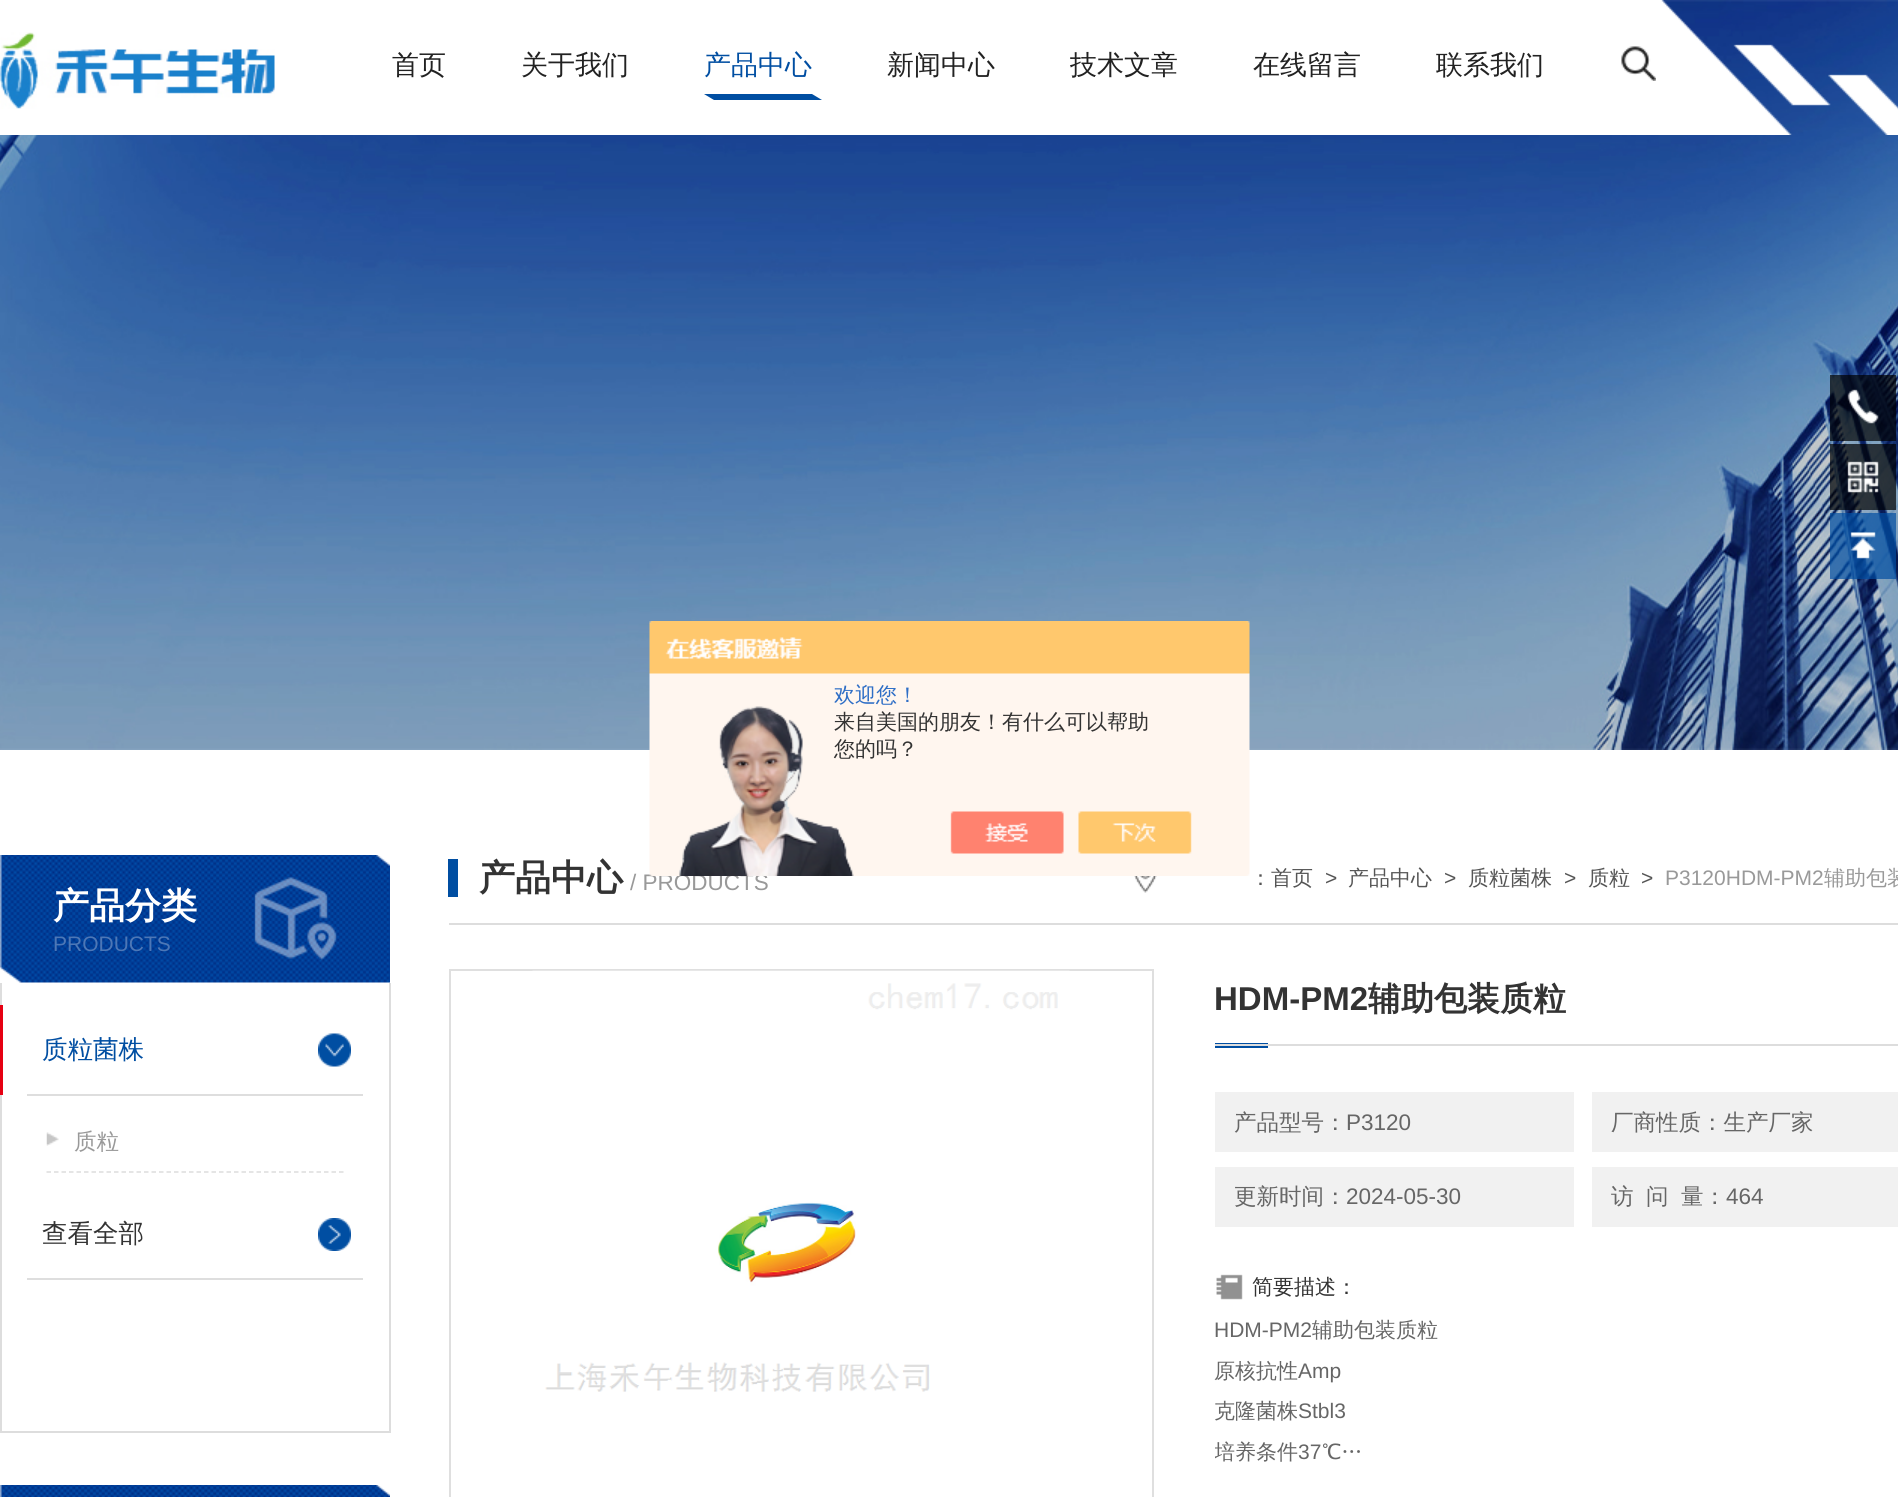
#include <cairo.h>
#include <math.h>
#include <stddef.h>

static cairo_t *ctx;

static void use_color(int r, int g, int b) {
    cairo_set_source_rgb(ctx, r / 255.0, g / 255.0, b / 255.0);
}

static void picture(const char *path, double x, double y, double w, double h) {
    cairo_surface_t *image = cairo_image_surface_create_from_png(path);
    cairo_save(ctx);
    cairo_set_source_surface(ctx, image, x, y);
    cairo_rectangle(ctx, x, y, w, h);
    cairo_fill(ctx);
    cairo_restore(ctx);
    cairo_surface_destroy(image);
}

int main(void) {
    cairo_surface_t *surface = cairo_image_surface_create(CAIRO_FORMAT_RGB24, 1898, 1497);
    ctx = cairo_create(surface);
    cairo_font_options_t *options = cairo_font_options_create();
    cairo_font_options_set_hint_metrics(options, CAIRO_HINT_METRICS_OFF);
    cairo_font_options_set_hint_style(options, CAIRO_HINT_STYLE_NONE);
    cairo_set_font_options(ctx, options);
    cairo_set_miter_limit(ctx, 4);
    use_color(255, 255, 255);
    cairo_paint(ctx);
    picture("img1.png", 0, 0, 1898, 750);
    use_color(255, 255, 255);
    cairo_rectangle(ctx, 0, 0, 1658, 135);
    cairo_fill(ctx);
    picture("img2.png", 1658, 0, 240, 135);
    picture("img3.png", 0, 32, 275, 77);
    cairo_select_font_face(ctx, "WenQuanYi Zen Hei Medium", CAIRO_FONT_SLANT_NORMAL, CAIRO_FONT_WEIGHT_NORMAL);
    cairo_set_font_size(ctx, 27);
    use_color(34, 34, 34);
    cairo_move_to(ctx, 392, 74);
    cairo_show_text(ctx, "首页");
    cairo_move_to(ctx, 521, 74);
    cairo_show_text(ctx, "关于我们");
    use_color(0, 78, 162);
    cairo_move_to(ctx, 704, 74);
    cairo_show_text(ctx, "产品中心");
    cairo_new_path(ctx);
    cairo_move_to(ctx, 704, 94);
    cairo_line_to(ctx, 812, 94);
    cairo_line_to(ctx, 822, 100);
    cairo_line_to(ctx, 714, 100);
    cairo_close_path(ctx);
    cairo_fill(ctx);
    use_color(34, 34, 34);
    cairo_move_to(ctx, 887, 74);
    cairo_show_text(ctx, "新闻中心");
    cairo_move_to(ctx, 1070, 74);
    cairo_show_text(ctx, "技术文章");
    cairo_move_to(ctx, 1253, 74);
    cairo_show_text(ctx, "在线留言");
    cairo_move_to(ctx, 1436, 74);
    cairo_show_text(ctx, "联系我们");
    picture("img4.png", 1621, 46, 35, 35);
    cairo_set_source_rgba(ctx, 0, 0, 0, 0.7);
    cairo_rectangle(ctx, 1830, 375, 66, 66);
    cairo_fill(ctx);
    picture("img5.png", 1847, 389, 32, 35);
    cairo_rectangle(ctx, 1830, 444, 66, 66);
    cairo_fill(ctx);
    picture("img6.png", 1847, 461, 32, 32);
    cairo_set_source_rgba(ctx, 0, 0.306, 0.635, 0.7);
    cairo_rectangle(ctx, 1830, 513, 66, 66);
    cairo_fill(ctx);
    picture("img7.png", 1850, 532, 26, 27);
    cairo_select_font_face(ctx, "Liberation Sans", CAIRO_FONT_SLANT_NORMAL, CAIRO_FONT_WEIGHT_NORMAL);
    cairo_set_font_size(ctx, 22.5);
    use_color(153, 153, 153);
    cairo_move_to(ctx, 630, 890);
    cairo_show_text(ctx, "/ PRODUCTS");
    picture("img8.png", 649, 621, 601, 255);
    cairo_select_font_face(ctx, "WenQuanYi Zen Hei Medium", CAIRO_FONT_SLANT_NORMAL, CAIRO_FONT_WEIGHT_NORMAL);
    cairo_set_font_size(ctx, 21);
    use_color(46, 110, 198);
    cairo_move_to(ctx, 834, 702);
    cairo_show_text(ctx, "欢迎您！");
    use_color(51, 51, 51);
    cairo_move_to(ctx, 834, 729);
    cairo_show_text(ctx, "来自美国的朋友！有什么可以帮助");
    cairo_move_to(ctx, 834, 756);
    cairo_show_text(ctx, "您的吗？");
    picture("img9.png", 0, 855, 390, 128);
    cairo_select_font_face(ctx, "WenQuanYi Zen Hei", CAIRO_FONT_SLANT_NORMAL, CAIRO_FONT_WEIGHT_BOLD);
    cairo_set_font_size(ctx, 36);
    use_color(255, 255, 255);
    cairo_move_to(ctx, 53, 918);
    cairo_show_text(ctx, "产品分类");
    cairo_select_font_face(ctx, "Liberation Sans", CAIRO_FONT_SLANT_NORMAL, CAIRO_FONT_WEIGHT_NORMAL);
    cairo_set_font_size(ctx, 21);
    use_color(77, 119, 182);
    cairo_move_to(ctx, 53, 951);
    cairo_show_text(ctx, "PRODUCTS");
    use_color(221, 221, 221);
    cairo_rectangle(ctx, 389, 983, 2, 450);
    cairo_fill(ctx);
    cairo_rectangle(ctx, 0, 1431, 390, 2);
    cairo_fill(ctx);
    cairo_rectangle(ctx, 0, 983, 2, 450);
    cairo_fill(ctx);
    use_color(230, 0, 18);
    cairo_rectangle(ctx, 0, 1005, 3, 90);
    cairo_fill(ctx);
    use_color(222, 222, 222);
    cairo_rectangle(ctx, 27, 1094, 336, 2);
    cairo_fill(ctx);
    cairo_select_font_face(ctx, "WenQuanYi Zen Hei Medium", CAIRO_FONT_SLANT_NORMAL, CAIRO_FONT_WEIGHT_NORMAL);
    cairo_set_font_size(ctx, 25.5);
    use_color(0, 78, 162);
    cairo_move_to(ctx, 42, 1058);
    cairo_show_text(ctx, "质粒菌株");
    picture("img10.png", 318, 1033, 33, 34);
    cairo_new_path(ctx);
    cairo_move_to(ctx, 46.5, 1172);
    cairo_line_to(ctx, 343.5, 1172);
    use_color(221, 221, 221);
    cairo_set_line_width(ctx, 1.5);
    cairo_set_dash(ctx, (double[]){4.5, 3}, 2, 0);
    cairo_stroke(ctx);
    picture("img11.png", 46, 1132, 13, 14);
    cairo_set_font_size(ctx, 22.5);
    use_color(153, 153, 153);
    cairo_move_to(ctx, 74, 1149);
    cairo_show_text(ctx, "质粒");
    use_color(222, 222, 222);
    cairo_rectangle(ctx, 27, 1278, 336, 2);
    cairo_fill(ctx);
    cairo_set_font_size(ctx, 25.5);
    use_color(51, 51, 51);
    cairo_move_to(ctx, 42, 1242);
    cairo_show_text(ctx, "查看全部");
    picture("img12.png", 318, 1218, 33, 33);
    picture("img13.png", 0, 1485, 390, 12);
    use_color(221, 221, 221);
    cairo_rectangle(ctx, 449, 923, 1449, 2);
    cairo_fill(ctx);
    use_color(0, 78, 162);
    cairo_rectangle(ctx, 448, 859, 10, 38);
    cairo_fill(ctx);
    cairo_select_font_face(ctx, "WenQuanYi Zen Hei", CAIRO_FONT_SLANT_NORMAL, CAIRO_FONT_WEIGHT_BOLD);
    cairo_set_font_size(ctx, 36);
    use_color(51, 51, 51);
    cairo_move_to(ctx, 479, 890);
    cairo_show_text(ctx, "产品中心");
    picture("img14.png", 1134, 876, 23, 17);
    cairo_select_font_face(ctx, "WenQuanYi Zen Hei Medium", CAIRO_FONT_SLANT_NORMAL, CAIRO_FONT_WEIGHT_NORMAL);
    cairo_set_font_size(ctx, 21);
    use_color(85, 85, 85);
    cairo_move_to(ctx, 1250, 885);
    cairo_show_text(ctx, "：首页");
    cairo_select_font_face(ctx, "Liberation Sans", CAIRO_FONT_SLANT_NORMAL, CAIRO_FONT_WEIGHT_NORMAL);
    cairo_move_to(ctx, 1325, 885);
    cairo_show_text(ctx, ">");
    cairo_select_font_face(ctx, "WenQuanYi Zen Hei Medium", CAIRO_FONT_SLANT_NORMAL, CAIRO_FONT_WEIGHT_NORMAL);
    cairo_move_to(ctx, 1348, 885);
    cairo_show_text(ctx, "产品中心");
    cairo_select_font_face(ctx, "Liberation Sans", CAIRO_FONT_SLANT_NORMAL, CAIRO_FONT_WEIGHT_NORMAL);
    cairo_move_to(ctx, 1444, 885);
    cairo_show_text(ctx, ">");
    cairo_select_font_face(ctx, "WenQuanYi Zen Hei Medium", CAIRO_FONT_SLANT_NORMAL, CAIRO_FONT_WEIGHT_NORMAL);
    cairo_move_to(ctx, 1468, 885);
    cairo_show_text(ctx, "质粒菌株");
    cairo_select_font_face(ctx, "Liberation Sans", CAIRO_FONT_SLANT_NORMAL, CAIRO_FONT_WEIGHT_NORMAL);
    cairo_move_to(ctx, 1564, 885);
    cairo_show_text(ctx, ">");
    cairo_select_font_face(ctx, "WenQuanYi Zen Hei Medium", CAIRO_FONT_SLANT_NORMAL, CAIRO_FONT_WEIGHT_NORMAL);
    cairo_move_to(ctx, 1588, 885);
    cairo_show_text(ctx, "质粒");
    cairo_select_font_face(ctx, "Liberation Sans", CAIRO_FONT_SLANT_NORMAL, CAIRO_FONT_WEIGHT_NORMAL);
    cairo_move_to(ctx, 1641, 885);
    cairo_show_text(ctx, ">");
    use_color(153, 153, 153);
    cairo_move_to(ctx, 1665, 885);
    cairo_show_text(ctx, "P3120HDM-PM2");
    cairo_select_font_face(ctx, "WenQuanYi Zen Hei Medium", CAIRO_FONT_SLANT_NORMAL, CAIRO_FONT_WEIGHT_NORMAL);
    cairo_move_to(ctx, 1824, 885);
    cairo_show_text(ctx, "辅助包装");
    cairo_rectangle(ctx, 450, 970, 703, 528);
    use_color(223, 223, 223);
    cairo_set_line_width(ctx, 2);
    cairo_set_dash(ctx, NULL, 0, 0);
    cairo_stroke(ctx);
    picture("img15.png", 532, 970, 538, 422);
    use_color(0, 78, 162);
    cairo_rectangle(ctx, 1215, 1043, 53, 5);
    cairo_fill(ctx);
    use_color(221, 221, 221);
    cairo_rectangle(ctx, 1215, 1044, 683, 2);
    cairo_fill(ctx);
    cairo_select_font_face(ctx, "Liberation Sans", CAIRO_FONT_SLANT_NORMAL, CAIRO_FONT_WEIGHT_BOLD);
    cairo_set_font_size(ctx, 33);
    use_color(51, 51, 51);
    cairo_move_to(ctx, 1214, 1010);
    cairo_show_text(ctx, "HDM-PM2");
    cairo_select_font_face(ctx, "WenQuanYi Zen Hei", CAIRO_FONT_SLANT_NORMAL, CAIRO_FONT_WEIGHT_BOLD);
    cairo_move_to(ctx, 1368, 1010);
    cairo_show_text(ctx, "辅助包装质粒");
    use_color(241, 241, 241);
    cairo_rectangle(ctx, 1215, 1092, 359, 60);
    cairo_fill(ctx);
    cairo_select_font_face(ctx, "WenQuanYi Zen Hei Medium", CAIRO_FONT_SLANT_NORMAL, CAIRO_FONT_WEIGHT_NORMAL);
    cairo_set_font_size(ctx, 22.5);
    use_color(102, 102, 102);
    cairo_move_to(ctx, 1234, 1130);
    cairo_show_text(ctx, "产品型号：");
    cairo_select_font_face(ctx, "Liberation Sans", CAIRO_FONT_SLANT_NORMAL, CAIRO_FONT_WEIGHT_NORMAL);
    cairo_move_to(ctx, 1346, 1130);
    cairo_show_text(ctx, "P3120");
    use_color(241, 241, 241);
    cairo_rectangle(ctx, 1592, 1092, 306, 60);
    cairo_fill(ctx);
    cairo_select_font_face(ctx, "WenQuanYi Zen Hei Medium", CAIRO_FONT_SLANT_NORMAL, CAIRO_FONT_WEIGHT_NORMAL);
    use_color(102, 102, 102);
    cairo_move_to(ctx, 1611, 1130);
    cairo_show_text(ctx, "厂商性质：生产厂家");
    use_color(241, 241, 241);
    cairo_rectangle(ctx, 1215, 1167, 359, 60);
    cairo_fill(ctx);
    use_color(102, 102, 102);
    cairo_move_to(ctx, 1234, 1204);
    cairo_show_text(ctx, "更新时间：");
    cairo_select_font_face(ctx, "Liberation Sans", CAIRO_FONT_SLANT_NORMAL, CAIRO_FONT_WEIGHT_NORMAL);
    cairo_move_to(ctx, 1346, 1204);
    cairo_show_text(ctx, "2024-05-30");
    use_color(241, 241, 241);
    cairo_rectangle(ctx, 1592, 1167, 306, 60);
    cairo_fill(ctx);
    cairo_select_font_face(ctx, "WenQuanYi Zen Hei Medium", CAIRO_FONT_SLANT_NORMAL, CAIRO_FONT_WEIGHT_NORMAL);
    use_color(102, 102, 102);
    cairo_move_to(ctx, 1611, 1204);
    cairo_show_text(ctx, "访");
    cairo_move_to(ctx, 1646, 1204);
    cairo_show_text(ctx, "问");
    cairo_move_to(ctx, 1681, 1204);
    cairo_show_text(ctx, "量：");
    cairo_select_font_face(ctx, "Liberation Sans", CAIRO_FONT_SLANT_NORMAL, CAIRO_FONT_WEIGHT_NORMAL);
    cairo_move_to(ctx, 1726, 1204);
    cairo_show_text(ctx, "464");
    picture("img16.png", 1216, 1274, 27, 26);
    cairo_select_font_face(ctx, "WenQuanYi Zen Hei Medium", CAIRO_FONT_SLANT_NORMAL, CAIRO_FONT_WEIGHT_NORMAL);
    cairo_set_font_size(ctx, 21);
    use_color(51, 51, 51);
    cairo_move_to(ctx, 1252, 1294);
    cairo_show_text(ctx, "简要描述：");
    cairo_select_font_face(ctx, "Liberation Sans", CAIRO_FONT_SLANT_NORMAL, CAIRO_FONT_WEIGHT_NORMAL);
    use_color(102, 102, 102);
    cairo_move_to(ctx, 1214, 1337);
    cairo_show_text(ctx, "HDM-PM2");
    cairo_select_font_face(ctx, "WenQuanYi Zen Hei Medium", CAIRO_FONT_SLANT_NORMAL, CAIRO_FONT_WEIGHT_NORMAL);
    cairo_move_to(ctx, 1312, 1337);
    cairo_show_text(ctx, "辅助包装质粒");
    cairo_move_to(ctx, 1214, 1378);
    cairo_show_text(ctx, "原核抗性");
    cairo_select_font_face(ctx, "Liberation Sans", CAIRO_FONT_SLANT_NORMAL, CAIRO_FONT_WEIGHT_NORMAL);
    cairo_move_to(ctx, 1298, 1378);
    cairo_show_text(ctx, "Amp");
    cairo_select_font_face(ctx, "WenQuanYi Zen Hei Medium", CAIRO_FONT_SLANT_NORMAL, CAIRO_FONT_WEIGHT_NORMAL);
    cairo_move_to(ctx, 1214, 1418);
    cairo_show_text(ctx, "克隆菌株");
    cairo_select_font_face(ctx, "Liberation Sans", CAIRO_FONT_SLANT_NORMAL, CAIRO_FONT_WEIGHT_NORMAL);
    cairo_move_to(ctx, 1298, 1418);
    cairo_show_text(ctx, "Stbl3");
    cairo_save(ctx);
    cairo_rectangle(ctx, 1215, 1311, 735, 170);
    cairo_clip(ctx);
    cairo_select_font_face(ctx, "WenQuanYi Zen Hei Medium", CAIRO_FONT_SLANT_NORMAL, CAIRO_FONT_WEIGHT_NORMAL);
    cairo_move_to(ctx, 1214, 1459);
    cairo_show_text(ctx, "培养条件");
    cairo_restore(ctx);
    cairo_move_to(ctx, 1298, 1459);
    cairo_show_text(ctx, "37");
    cairo_select_font_face(ctx, "WenQuanYi Zen Hei Medium", CAIRO_FONT_SLANT_NORMAL, CAIRO_FONT_WEIGHT_NORMAL);
    cairo_move_to(ctx, 1322, 1459);
    cairo_show_text(ctx, "℃…");
    cairo_surface_write_to_png(surface, "result.png");
    cairo_font_options_destroy(options);
    cairo_destroy(ctx);
    cairo_surface_destroy(surface);
    return 0;
}
